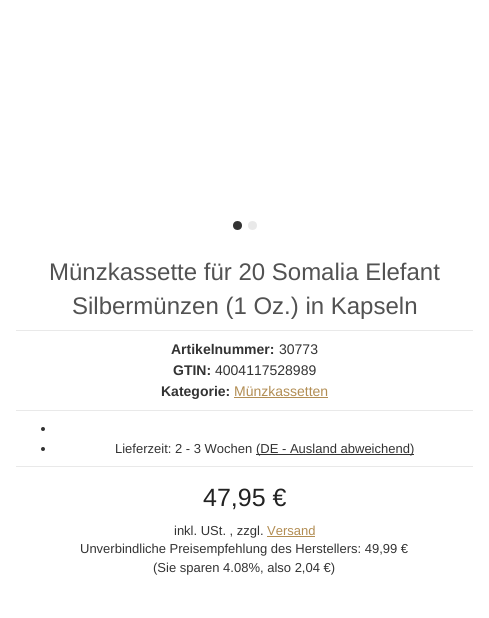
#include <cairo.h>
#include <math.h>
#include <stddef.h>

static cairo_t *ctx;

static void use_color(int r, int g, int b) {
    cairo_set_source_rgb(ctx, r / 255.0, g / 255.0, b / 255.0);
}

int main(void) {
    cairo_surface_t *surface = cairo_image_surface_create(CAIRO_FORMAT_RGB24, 489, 618);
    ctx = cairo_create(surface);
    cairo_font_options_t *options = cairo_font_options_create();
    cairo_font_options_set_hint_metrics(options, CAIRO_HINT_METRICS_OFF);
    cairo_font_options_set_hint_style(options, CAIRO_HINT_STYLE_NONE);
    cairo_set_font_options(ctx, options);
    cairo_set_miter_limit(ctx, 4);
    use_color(255, 255, 255);
    cairo_paint(ctx);
    use_color(51, 51, 51);
    cairo_arc(ctx, 237.5, 225.5, 4.5, 0, 2 * M_PI);
    cairo_fill(ctx);
    use_color(233, 233, 233);
    cairo_arc(ctx, 252.5, 225.5, 4.5, 0, 2 * M_PI);
    cairo_fill(ctx);
    cairo_rectangle(ctx, 16, 330, 457, 1);
    cairo_fill(ctx);
    cairo_select_font_face(ctx, "Liberation Sans", CAIRO_FONT_SLANT_NORMAL, CAIRO_FONT_WEIGHT_NORMAL);
    cairo_set_font_size(ctx, 24);
    use_color(82, 82, 82);
    cairo_move_to(ctx, 49, 280);
    cairo_show_text(ctx, "Münzkassette für 20 Somalia Elefant");
    cairo_move_to(ctx, 72, 314);
    cairo_show_text(ctx, "Silbermünzen (1 Oz.) in Kapseln");
    use_color(233, 233, 233);
    cairo_rectangle(ctx, 16, 410, 457, 1);
    cairo_fill(ctx);
    cairo_select_font_face(ctx, "Liberation Sans", CAIRO_FONT_SLANT_NORMAL, CAIRO_FONT_WEIGHT_BOLD);
    cairo_set_font_size(ctx, 14);
    use_color(51, 51, 51);
    cairo_move_to(ctx, 171, 354);
    cairo_show_text(ctx, "Artikelnummer:");
    cairo_select_font_face(ctx, "Liberation Sans", CAIRO_FONT_SLANT_NORMAL, CAIRO_FONT_WEIGHT_NORMAL);
    cairo_move_to(ctx, 279, 354);
    cairo_show_text(ctx, "30773");
    cairo_select_font_face(ctx, "Liberation Sans", CAIRO_FONT_SLANT_NORMAL, CAIRO_FONT_WEIGHT_BOLD);
    cairo_move_to(ctx, 173, 375);
    cairo_show_text(ctx, "GTIN:");
    cairo_select_font_face(ctx, "Liberation Sans", CAIRO_FONT_SLANT_NORMAL, CAIRO_FONT_WEIGHT_NORMAL);
    cairo_move_to(ctx, 215, 375);
    cairo_show_text(ctx, "4004117528989");
    cairo_select_font_face(ctx, "Liberation Sans", CAIRO_FONT_SLANT_NORMAL, CAIRO_FONT_WEIGHT_BOLD);
    cairo_move_to(ctx, 161, 396);
    cairo_show_text(ctx, "Kategorie:");
    cairo_select_font_face(ctx, "Liberation Sans", CAIRO_FONT_SLANT_NORMAL, CAIRO_FONT_WEIGHT_NORMAL);
    use_color(178, 141, 83);
    cairo_move_to(ctx, 234, 396);
    cairo_show_text(ctx, "Münzkassetten");
    cairo_rectangle(ctx, 234, 397, 94, 1);
    cairo_fill(ctx);
    use_color(233, 233, 233);
    cairo_rectangle(ctx, 16, 466, 457, 1);
    cairo_fill(ctx);
    use_color(51, 51, 51);
    cairo_arc(ctx, 43, 429, 2, 0, 2 * M_PI);
    cairo_fill(ctx);
    cairo_arc(ctx, 43, 449, 2, 0, 2 * M_PI);
    cairo_fill(ctx);
    cairo_set_font_size(ctx, 13);
    cairo_move_to(ctx, 115, 453);
    cairo_show_text(ctx, "Lieferzeit: 2 - 3 Wochen");
    cairo_rectangle(ctx, 256, 454, 158, 1);
    cairo_fill(ctx);
    cairo_move_to(ctx, 256, 453);
    cairo_show_text(ctx, "(DE - Ausland abweichend)");
    cairo_set_font_size(ctx, 25);
    use_color(34, 34, 34);
    cairo_move_to(ctx, 203, 506);
    cairo_show_text(ctx, "47,95 €");
    cairo_set_font_size(ctx, 13);
    use_color(51, 51, 51);
    cairo_move_to(ctx, 174, 535);
    cairo_show_text(ctx, "inkl. USt. , zzgl.");
    use_color(178, 141, 83);
    cairo_move_to(ctx, 267, 535);
    cairo_show_text(ctx, "Versand");
    cairo_rectangle(ctx, 267, 536, 48, 1);
    cairo_fill(ctx);
    use_color(51, 51, 51);
    cairo_move_to(ctx, 80, 553);
    cairo_show_text(ctx, "Unverbindliche Preisempfehlung des Herstellers: 49,99 €");
    cairo_move_to(ctx, 153, 572);
    cairo_show_text(ctx, "(Sie sparen 4.08%, also 2,04 €)");
    cairo_surface_write_to_png(surface, "result.png");
    cairo_font_options_destroy(options);
    cairo_destroy(ctx);
    cairo_surface_destroy(surface);
    return 0;
}
